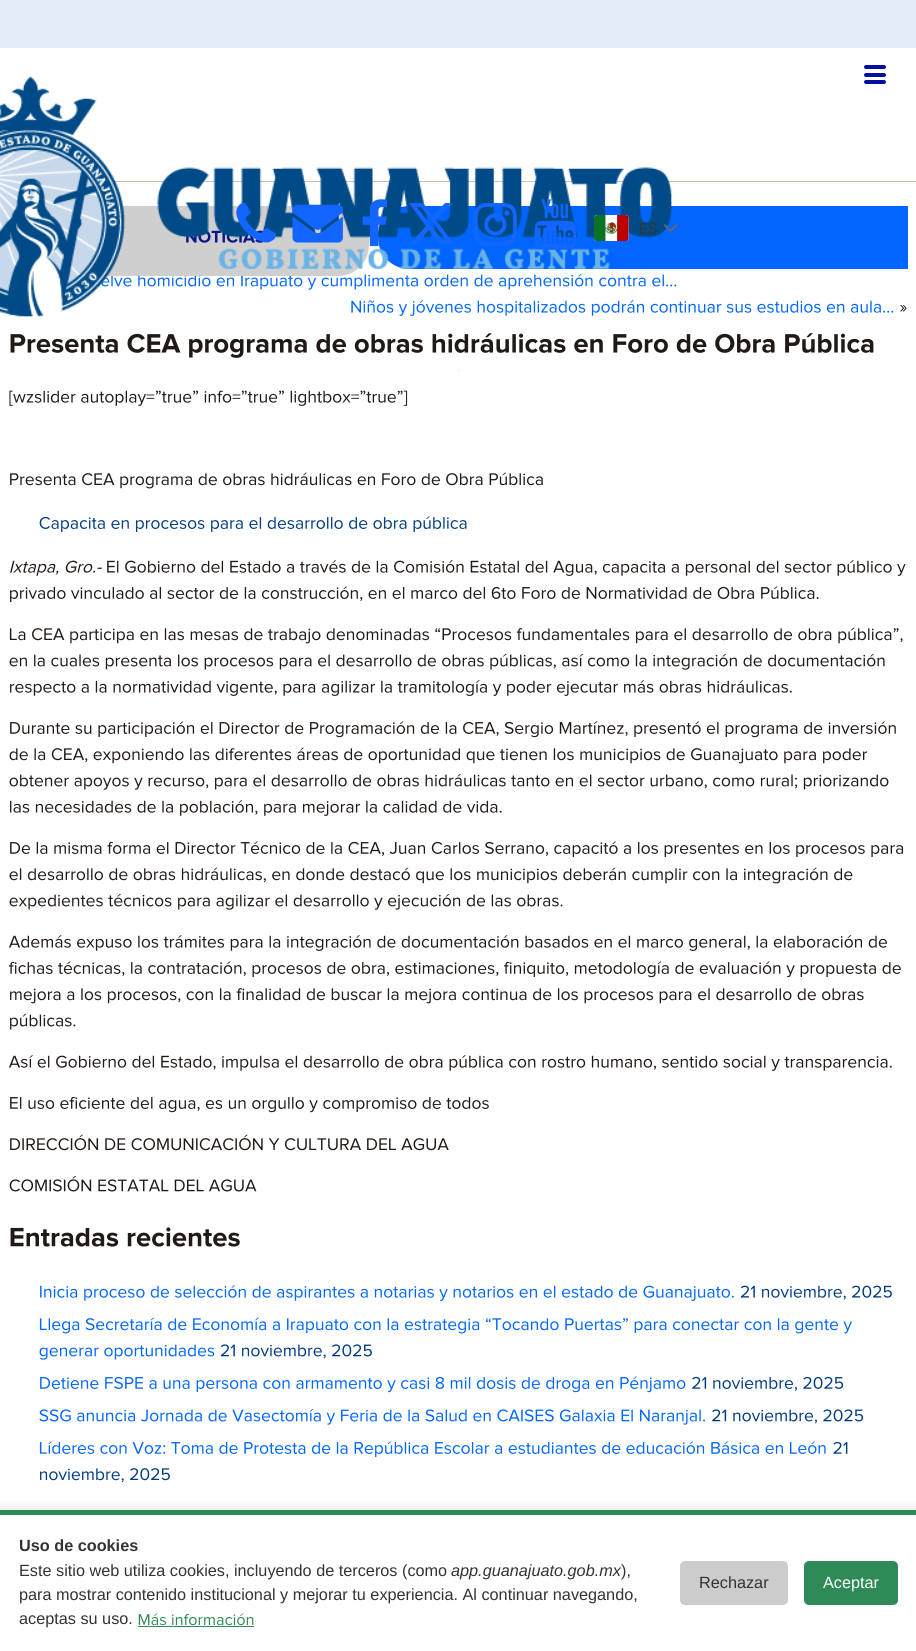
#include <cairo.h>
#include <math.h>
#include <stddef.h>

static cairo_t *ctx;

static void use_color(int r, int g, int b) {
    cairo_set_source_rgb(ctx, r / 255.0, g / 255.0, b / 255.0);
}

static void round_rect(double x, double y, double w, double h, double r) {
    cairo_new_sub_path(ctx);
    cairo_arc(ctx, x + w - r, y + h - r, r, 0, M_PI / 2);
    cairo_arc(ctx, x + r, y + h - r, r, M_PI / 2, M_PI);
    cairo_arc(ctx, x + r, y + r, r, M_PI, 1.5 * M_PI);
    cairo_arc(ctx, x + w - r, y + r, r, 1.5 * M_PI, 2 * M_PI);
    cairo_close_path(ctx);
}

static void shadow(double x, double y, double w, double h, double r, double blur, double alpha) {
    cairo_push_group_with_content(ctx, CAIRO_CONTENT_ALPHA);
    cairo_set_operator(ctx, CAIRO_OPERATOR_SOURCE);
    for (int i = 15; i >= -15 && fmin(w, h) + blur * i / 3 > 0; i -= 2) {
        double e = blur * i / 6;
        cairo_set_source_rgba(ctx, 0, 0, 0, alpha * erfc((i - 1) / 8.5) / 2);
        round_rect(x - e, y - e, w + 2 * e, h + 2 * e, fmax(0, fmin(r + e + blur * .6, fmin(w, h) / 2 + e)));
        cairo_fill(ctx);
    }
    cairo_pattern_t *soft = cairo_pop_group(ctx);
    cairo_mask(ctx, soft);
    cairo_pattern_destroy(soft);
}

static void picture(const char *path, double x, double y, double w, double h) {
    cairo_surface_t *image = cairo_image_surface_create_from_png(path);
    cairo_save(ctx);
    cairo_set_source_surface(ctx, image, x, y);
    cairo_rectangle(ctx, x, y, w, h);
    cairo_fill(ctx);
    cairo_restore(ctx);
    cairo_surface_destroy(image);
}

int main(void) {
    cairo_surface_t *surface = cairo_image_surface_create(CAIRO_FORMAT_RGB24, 916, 1651);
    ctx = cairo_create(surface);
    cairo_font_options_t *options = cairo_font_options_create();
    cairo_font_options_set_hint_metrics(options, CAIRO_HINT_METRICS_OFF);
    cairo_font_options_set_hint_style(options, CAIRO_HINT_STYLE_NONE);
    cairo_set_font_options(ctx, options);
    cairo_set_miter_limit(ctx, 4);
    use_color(255, 255, 255);
    cairo_paint(ctx);
    use_color(228, 236, 250);
    cairo_rectangle(ctx, 0, 0, 916, 48);
    cairo_fill(ctx);
    use_color(200, 200, 170);
    cairo_rectangle(ctx, 88, 181, 828, 1);
    cairo_fill(ctx);
    picture("img13.png", 68, 274, 609, 16);
    use_color(207, 207, 207);
    round_rect(81, 206, 288, 70, 31);
    cairo_fill(ctx);
    picture("img12.png", 186, 230, 77, 13);
    use_color(0, 102, 255);
    cairo_new_path(ctx);
    cairo_move_to(ctx, 409.5, 206);
    cairo_line_to(ctx, 908, 206);
    cairo_line_to(ctx, 908, 269);
    cairo_line_to(ctx, 409.5, 269);
    cairo_curve_to(ctx, 392, 269, 378, 255, 378, 237.5);
    cairo_curve_to(ctx, 378, 220, 392, 206, 409.5, 206);
    cairo_close_path(ctx);
    cairo_fill(ctx);
    picture("img14.png", 351, 300, 543, 16);
    picture("img1.png", 0, 76, 673, 241);
    picture("img2.png", 236, 202, 40, 41);
    picture("img3.png", 292, 204, 51, 39);
    picture("img4.png", 362, 199, 25, 48);
    use_color(18, 102, 255);
    cairo_new_path(ctx);
    cairo_move_to(ctx, 445, 203);
    cairo_line_to(ctx, 452, 203);
    cairo_line_to(ctx, 436, 220);
    cairo_line_to(ctx, 454, 244);
    cairo_line_to(ctx, 440, 244);
    cairo_line_to(ctx, 429, 230);
    cairo_line_to(ctx, 417, 244);
    cairo_line_to(ctx, 410, 244);
    cairo_line_to(ctx, 426, 226);
    cairo_line_to(ctx, 409, 203);
    cairo_line_to(ctx, 423, 203);
    cairo_line_to(ctx, 433, 216);
    cairo_close_path(ctx);
    cairo_move_to(ctx, 442, 240);
    cairo_line_to(ctx, 446, 240);
    cairo_line_to(ctx, 421, 207);
    cairo_line_to(ctx, 417, 207);
    cairo_close_path(ctx);
    cairo_fill(ctx);
    picture("img5.png", 473, 202, 44, 44);
    picture("img6.png", 534, 199, 43, 51);
    picture("img7.png", 594, 215, 35, 26);
    picture("img8.png", 640, 222, 17, 12);
    picture("img9.png", 664, 224, 14, 9);
    picture("img10.png", 457, 370, 2, 1);
    picture("img11.png", 458, 370, 2, 2);
    use_color(0, 15, 159);
    round_rect(864, 65, 22, 4, 2);
    cairo_fill(ctx);
    round_rect(864, 73, 22, 4, 2);
    cairo_fill(ctx);
    round_rect(864, 80, 22, 4, 2);
    cairo_fill(ctx);
    picture("img15.png", 900, 305, 7, 7);
    picture("img16.png", 10, 333, 864, 25);
    picture("img17.png", 9, 390, 399, 16);
    picture("img18.png", 10, 472, 533, 17);
    picture("img19.png", 39, 516, 428, 16);
    picture("img20.png", 10, 560, 92, 16);
    picture("img21.png", 107, 560, 799, 16);
    picture("img22.png", 10, 586, 809, 16);
    picture("img23.png", 9, 627, 894, 17);
    picture("img24.png", 9, 654, 876, 16);
    picture("img25.png", 10, 680, 782, 16);
    picture("img26.png", 10, 721, 886, 17);
    picture("img27.png", 9, 747, 859, 17);
    picture("img28.png", 9, 774, 880, 16);
    picture("img29.png", 10, 800, 492, 16);
    picture("img30.png", 10, 841, 894, 16);
    picture("img31.png", 9, 867, 844, 17);
    picture("img32.png", 9, 894, 554, 16);
    picture("img33.png", 9, 935, 878, 16);
    picture("img34.png", 9, 961, 892, 17);
    picture("img35.png", 10, 988, 854, 16);
    picture("img36.png", 10, 1014, 66, 16);
    picture("img37.png", 9, 1055, 883, 16);
    picture("img38.png", 10, 1096, 479, 17);
    picture("img39.png", 10, 1134, 439, 17);
    picture("img40.png", 9, 1176, 248, 16);
    picture("img41.png", 10, 1227, 230, 20);
    picture("img42.png", 40, 1285, 694, 16);
    picture("img43.png", 740, 1285, 152, 15);
    picture("img44.png", 39, 1317, 813, 17);
    picture("img45.png", 39, 1344, 176, 16);
    picture("img46.png", 220, 1344, 152, 15);
    picture("img47.png", 40, 1376, 646, 17);
    picture("img48.png", 692, 1376, 152, 15);
    picture("img49.png", 39, 1409, 666, 16);
    picture("img50.png", 712, 1409, 152, 15);
    picture("img51.png", 39, 1441, 787, 16);
    picture("img52.png", 833, 1441, 15, 13);
    picture("img53.png", 40, 1468, 130, 15);
    use_color(0, 0, 0);
    shadow(0, 1508, 916, 141, 0, 6, 0.1);
    use_color(255, 255, 255);
    cairo_rectangle(ctx, 0, 1515, 916, 136);
    cairo_fill(ctx);
    use_color(46, 139, 87);
    cairo_rectangle(ctx, 0, 1510, 916, 5);
    cairo_fill(ctx);
    cairo_select_font_face(ctx, "Liberation Sans", CAIRO_FONT_SLANT_NORMAL, CAIRO_FONT_WEIGHT_BOLD);
    cairo_set_font_size(ctx, 16.25);
    use_color(51, 51, 51);
    cairo_move_to(ctx, 19, 1551);
    cairo_show_text(ctx, "Uso de cookies");
    cairo_select_font_face(ctx, "Liberation Sans", CAIRO_FONT_SLANT_NORMAL, CAIRO_FONT_WEIGHT_NORMAL);
    cairo_move_to(ctx, 19, 1576);
    cairo_show_text(ctx, "Este sitio web utiliza cookies, incluyendo de terceros (como");
    cairo_select_font_face(ctx, "Liberation Sans", CAIRO_FONT_SLANT_ITALIC, CAIRO_FONT_WEIGHT_NORMAL);
    cairo_move_to(ctx, 451, 1576);
    cairo_show_text(ctx, "app.guanajuato.gob.mx");
    cairo_select_font_face(ctx, "Liberation Sans", CAIRO_FONT_SLANT_NORMAL, CAIRO_FONT_WEIGHT_NORMAL);
    cairo_move_to(ctx, 621, 1576);
    cairo_show_text(ctx, "),");
    cairo_move_to(ctx, 19, 1600);
    cairo_show_text(ctx, "para mostrar contenido institucional y mejorar tu experiencia. Al continuar navegando,");
    cairo_move_to(ctx, 19, 1624);
    cairo_show_text(ctx, "aceptas su uso.");
    picture("img54.png", 138, 1613, 116, 13);
    use_color(46, 139, 87);
    cairo_rectangle(ctx, 138, 1626, 116, 1);
    cairo_fill(ctx);
    use_color(204, 204, 204);
    round_rect(680, 1561, 108, 44, 5);
    cairo_fill(ctx);
    use_color(51, 51, 51);
    cairo_move_to(ctx, 699, 1588);
    cairo_show_text(ctx, "Rechazar");
    use_color(46, 139, 87);
    round_rect(804, 1561, 94, 44, 5);
    cairo_fill(ctx);
    use_color(255, 255, 255);
    cairo_move_to(ctx, 823, 1588);
    cairo_show_text(ctx, "Aceptar");
    cairo_surface_write_to_png(surface, "result.png");
    cairo_font_options_destroy(options);
    cairo_destroy(ctx);
    cairo_surface_destroy(surface);
    return 0;
}
